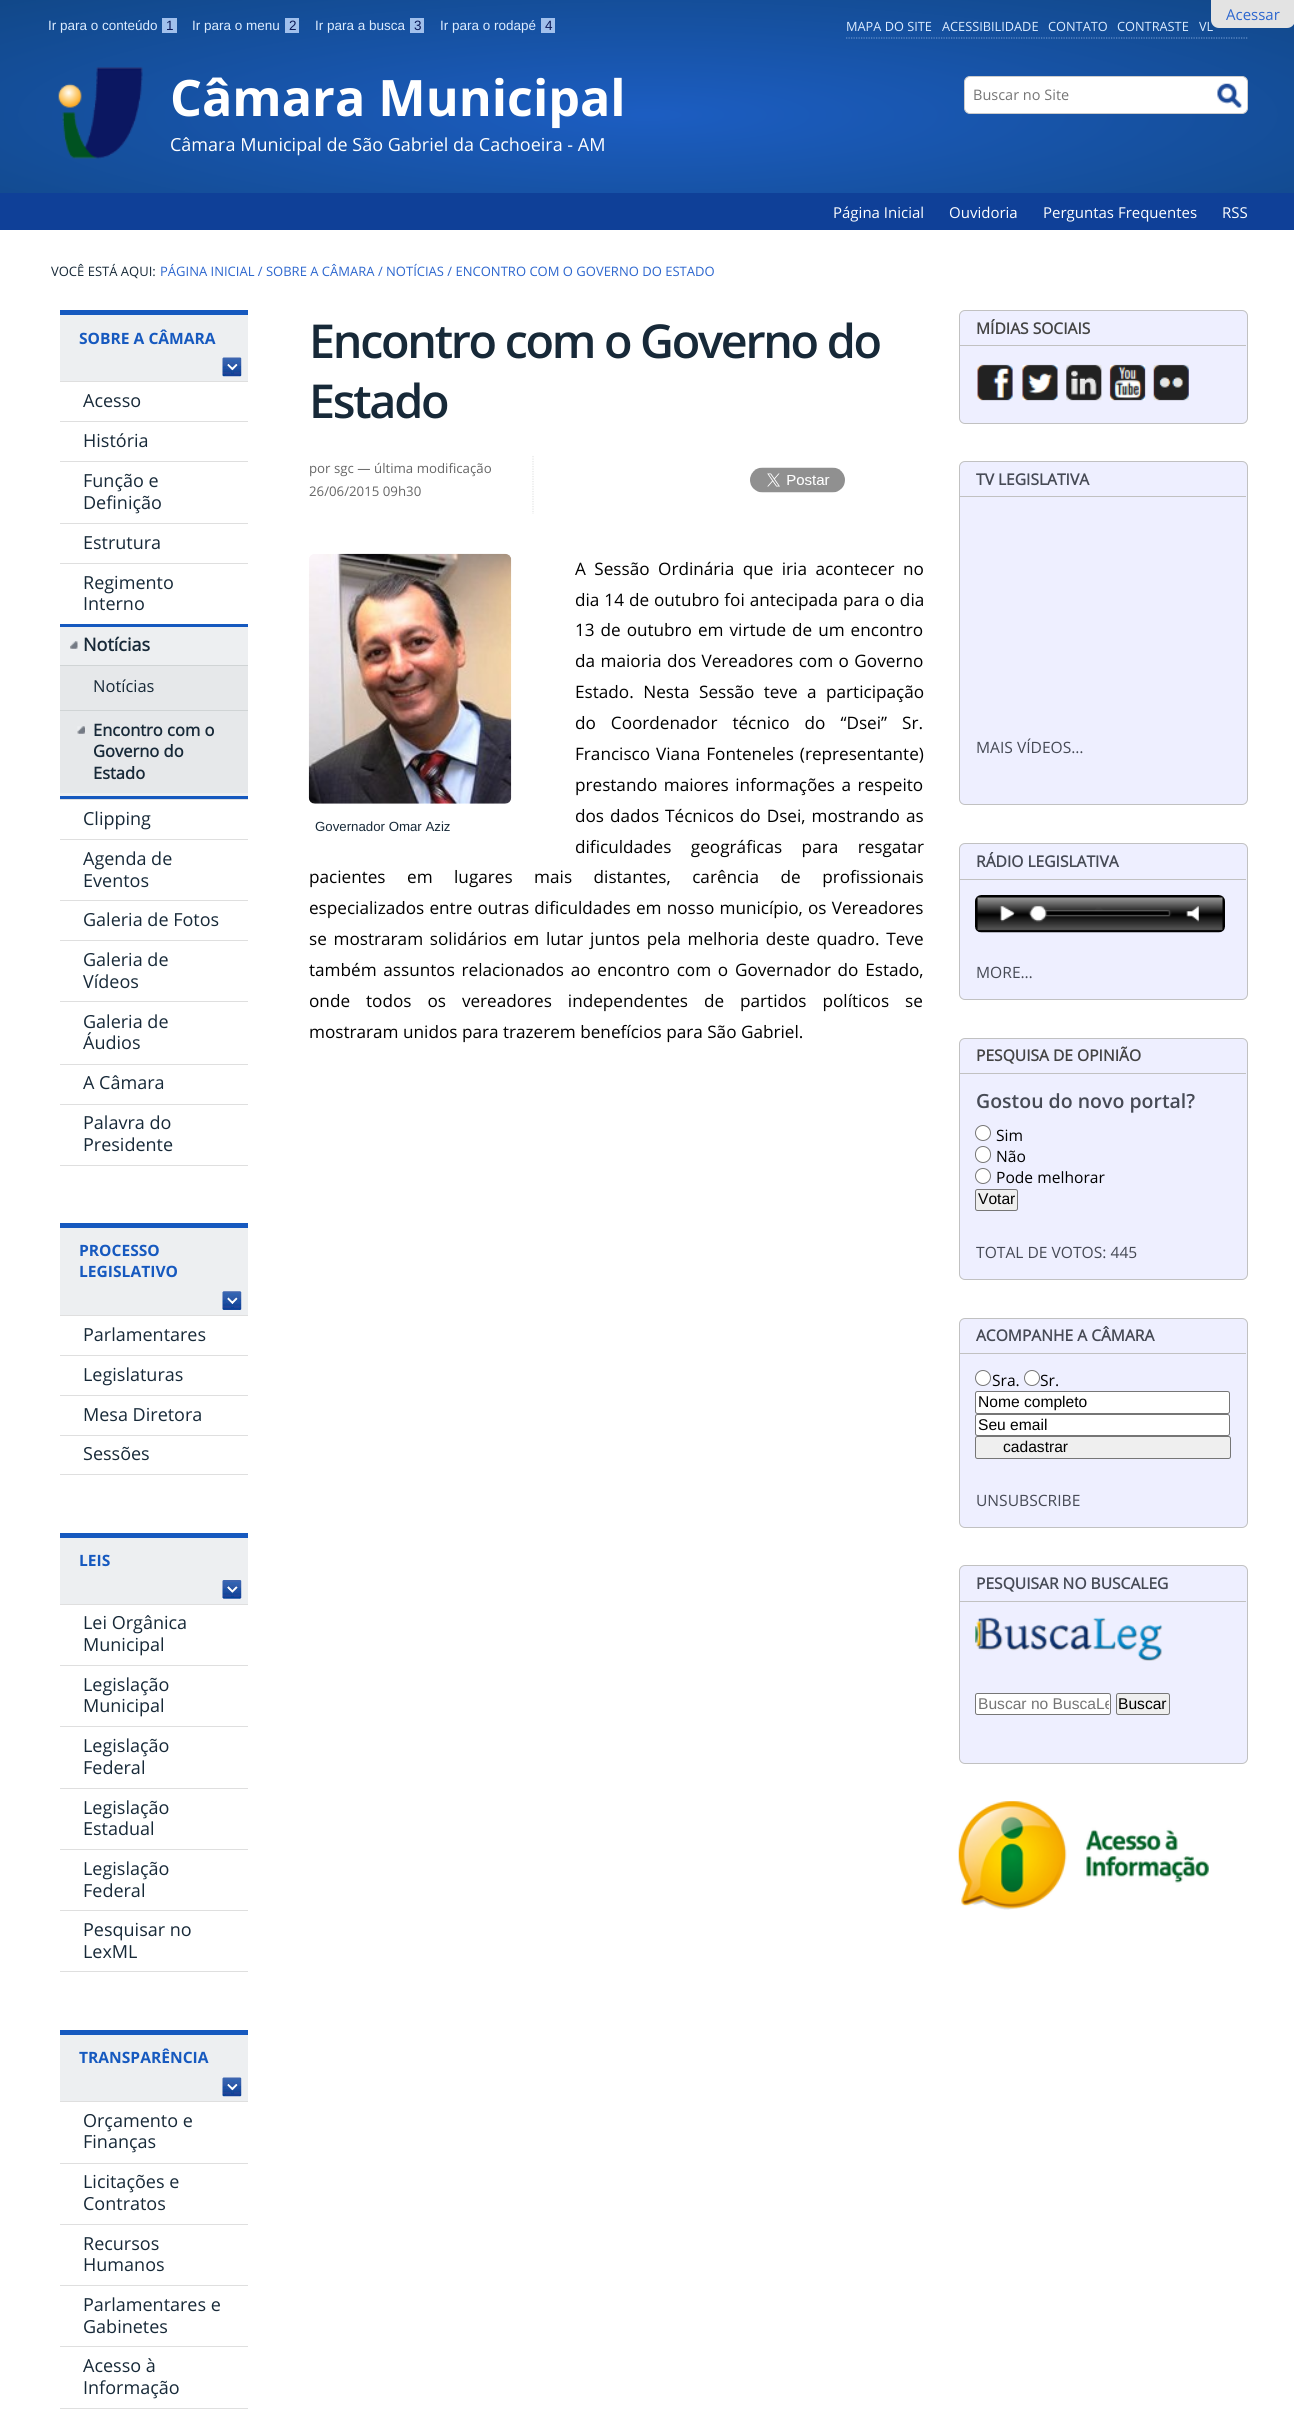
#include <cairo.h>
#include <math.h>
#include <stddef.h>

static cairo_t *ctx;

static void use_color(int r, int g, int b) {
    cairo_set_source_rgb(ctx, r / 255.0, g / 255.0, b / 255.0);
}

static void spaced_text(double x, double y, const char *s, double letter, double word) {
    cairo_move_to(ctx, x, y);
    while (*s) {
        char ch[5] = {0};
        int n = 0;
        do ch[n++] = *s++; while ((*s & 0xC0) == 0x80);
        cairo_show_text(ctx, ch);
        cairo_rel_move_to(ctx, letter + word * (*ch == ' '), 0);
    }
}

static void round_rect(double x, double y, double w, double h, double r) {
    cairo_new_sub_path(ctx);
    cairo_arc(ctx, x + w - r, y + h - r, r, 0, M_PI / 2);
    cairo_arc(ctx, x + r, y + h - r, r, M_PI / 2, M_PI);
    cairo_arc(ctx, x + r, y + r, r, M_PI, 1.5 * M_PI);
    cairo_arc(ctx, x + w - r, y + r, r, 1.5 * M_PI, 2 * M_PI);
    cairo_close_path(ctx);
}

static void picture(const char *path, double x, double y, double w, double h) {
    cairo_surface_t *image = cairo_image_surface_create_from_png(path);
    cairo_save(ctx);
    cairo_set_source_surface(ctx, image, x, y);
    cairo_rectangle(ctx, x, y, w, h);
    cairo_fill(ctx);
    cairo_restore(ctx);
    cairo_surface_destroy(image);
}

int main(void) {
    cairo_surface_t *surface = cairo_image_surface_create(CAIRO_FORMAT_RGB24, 1294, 2410);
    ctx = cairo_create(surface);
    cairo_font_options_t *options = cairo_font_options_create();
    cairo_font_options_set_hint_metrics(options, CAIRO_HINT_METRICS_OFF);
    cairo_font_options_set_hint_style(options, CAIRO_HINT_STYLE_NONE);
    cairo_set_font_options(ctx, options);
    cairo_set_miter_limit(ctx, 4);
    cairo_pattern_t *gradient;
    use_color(255, 255, 255);
    cairo_paint(ctx);
    gradient = cairo_pattern_create_radial(0, 0, 0, 0, 0, 1);
    cairo_pattern_set_matrix(gradient, &(cairo_matrix_t){1.0 / 916, 0, 0, 1.0 / 163, -1.0 * 648 / 916, -1.0 * 115 / 163});
    cairo_pattern_add_color_stop_rgba(gradient, 0.01, 0.11, 0.365, 0.757, 1);
    cairo_pattern_add_color_stop_rgba(gradient, 1, 0.067, 0.282, 0.537, 1);
    cairo_set_source(ctx, gradient);
    cairo_pattern_destroy(gradient);
    cairo_rectangle(ctx, 0, 0, 1294, 193);
    cairo_fill(ctx);
    cairo_select_font_face(ctx, "Open Sans", CAIRO_FONT_SLANT_NORMAL, CAIRO_FONT_WEIGHT_NORMAL);
    cairo_set_font_size(ctx, 12.75);
    use_color(220, 236, 255);
    cairo_move_to(ctx, 1199, 31);
    cairo_show_text(ctx, "VL");
    use_color(227, 227, 227);
    cairo_new_path(ctx);
    cairo_move_to(ctx, 1211, 0);
    cairo_line_to(ctx, 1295, 0);
    cairo_line_to(ctx, 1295, 20);
    cairo_curve_to(ctx, 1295, 24.5, 1291.5, 28, 1287, 28);
    cairo_line_to(ctx, 1219, 28);
    cairo_curve_to(ctx, 1214.5, 28, 1211, 24.5, 1211, 20);
    cairo_close_path(ctx);
    cairo_fill(ctx);
    cairo_set_font_size(ctx, 15);
    use_color(44, 102, 206);
    cairo_move_to(ctx, 1226, 20);
    cairo_show_text(ctx, "Acessar");
    cairo_select_font_face(ctx, "Liberation Sans", CAIRO_FONT_SLANT_NORMAL, CAIRO_FONT_WEIGHT_NORMAL);
    cairo_set_font_size(ctx, 13.5);
    use_color(220, 236, 255);
    cairo_move_to(ctx, 48, 30);
    cairo_show_text(ctx, "Ir para o conteúdo");
    use_color(161, 192, 236);
    cairo_rectangle(ctx, 162, 18, 15, 15);
    cairo_fill(ctx);
    use_color(10, 24, 87);
    cairo_move_to(ctx, 166, 30);
    cairo_show_text(ctx, "1");
    use_color(220, 236, 255);
    cairo_move_to(ctx, 192, 30);
    cairo_show_text(ctx, "Ir para o menu");
    use_color(161, 192, 236);
    cairo_rectangle(ctx, 285, 18, 14, 15);
    cairo_fill(ctx);
    use_color(10, 24, 87);
    cairo_move_to(ctx, 289, 30);
    cairo_show_text(ctx, "2");
    use_color(220, 236, 255);
    cairo_move_to(ctx, 315, 30);
    cairo_show_text(ctx, "Ir para a busca");
    use_color(161, 192, 236);
    cairo_rectangle(ctx, 410, 18, 14, 15);
    cairo_fill(ctx);
    use_color(10, 24, 87);
    cairo_move_to(ctx, 414, 30);
    cairo_show_text(ctx, "3");
    use_color(220, 236, 255);
    cairo_move_to(ctx, 440, 30);
    cairo_show_text(ctx, "Ir para o rodapé");
    use_color(161, 192, 236);
    cairo_rectangle(ctx, 541, 18, 14, 15);
    cairo_fill(ctx);
    use_color(10, 24, 87);
    cairo_move_to(ctx, 545, 30);
    cairo_show_text(ctx, "4");
    cairo_new_path(ctx);
    cairo_move_to(ctx, 846, 38);
    cairo_line_to(ctx, 1247.5, 38);
    use_color(104, 147, 203);
    cairo_set_line_width(ctx, 1.2);
    cairo_set_dash(ctx, (double[]){1.25, 1.25}, 2, 0);
    cairo_stroke(ctx);
    cairo_select_font_face(ctx, "Open Sans", CAIRO_FONT_SLANT_NORMAL, CAIRO_FONT_WEIGHT_NORMAL);
    cairo_set_font_size(ctx, 12.75);
    use_color(220, 236, 255);
    cairo_move_to(ctx, 846, 31);
    cairo_show_text(ctx, "MAPA DO SITE");
    cairo_move_to(ctx, 942, 31);
    cairo_show_text(ctx, "ACESSIBILIDADE");
    cairo_move_to(ctx, 1048, 31);
    cairo_show_text(ctx, "CONTATO");
    cairo_move_to(ctx, 1117, 31);
    cairo_show_text(ctx, "CONTRASTE");
    picture("img1.png", 58, 67, 85, 92);
    cairo_select_font_face(ctx, "Open Sans", CAIRO_FONT_SLANT_NORMAL, CAIRO_FONT_WEIGHT_BOLD);
    cairo_set_font_size(ctx, 50.25);
    use_color(255, 255, 255);
    cairo_move_to(ctx, 170, 116);
    cairo_show_text(ctx, "Câmara Municipal");
    cairo_select_font_face(ctx, "Open Sans", CAIRO_FONT_SLANT_NORMAL, CAIRO_FONT_WEIGHT_NORMAL);
    cairo_set_font_size(ctx, 18);
    cairo_move_to(ctx, 170, 151);
    cairo_show_text(ctx, "Câmara Municipal de São Gabriel da Cachoeira - AM");
    round_rect(964.5, 76.5, 283, 37, 5.5);
    cairo_fill_preserve(ctx);
    use_color(204, 204, 204);
    cairo_set_line_width(ctx, 1);
    cairo_set_dash(ctx, NULL, 0, 0);
    cairo_stroke(ctx);
    cairo_set_font_size(ctx, 14.5);
    use_color(117, 117, 117);
    cairo_move_to(ctx, 973, 100);
    cairo_show_text(ctx, "Buscar no Site");
    picture("img2.png", 1217, 83, 25, 25);
    use_color(15, 64, 152);
    cairo_rectangle(ctx, 0, 193, 1294, 37);
    cairo_fill(ctx);
    cairo_set_font_size(ctx, 15);
    use_color(255, 255, 255);
    cairo_move_to(ctx, 833, 218);
    cairo_show_text(ctx, "Página Inicial");
    cairo_move_to(ctx, 949, 218);
    cairo_show_text(ctx, "Ouvidoria");
    cairo_move_to(ctx, 1043, 218);
    cairo_show_text(ctx, "Perguntas Frequentes");
    cairo_move_to(ctx, 1222, 218);
    cairo_show_text(ctx, "RSS");
    cairo_set_font_size(ctx, 13);
    use_color(23, 41, 56);
    cairo_move_to(ctx, 51, 276);
    cairo_show_text(ctx, "VOCÊ ESTÁ AQUI:");
    use_color(44, 102, 206);
    cairo_move_to(ctx, 160, 276);
    cairo_show_text(ctx, "PÁGINA INICIAL / SOBRE A CÂMARA / NOTÍCIAS / ENCONTRO COM O GOVERNO DO ESTADO");
    use_color(237, 239, 241);
    cairo_rectangle(ctx, 60, 315, 188, 66);
    cairo_fill(ctx);
    picture("img3.png", 222, 357, 20, 20);
    use_color(22, 89, 191);
    cairo_rectangle(ctx, 60, 310, 188, 5);
    cairo_fill(ctx);
    cairo_select_font_face(ctx, "Open Sans", CAIRO_FONT_SLANT_NORMAL, CAIRO_FONT_WEIGHT_BOLD);
    cairo_set_font_size(ctx, 15.6);
    cairo_move_to(ctx, 79, 344);
    cairo_show_text(ctx, "SOBRE A CÂMARA");
    use_color(223, 223, 223);
    cairo_rectangle(ctx, 60, 381, 188, 1);
    cairo_fill(ctx);
    cairo_select_font_face(ctx, "Open Sans", CAIRO_FONT_SLANT_NORMAL, CAIRO_FONT_WEIGHT_NORMAL);
    cairo_set_font_size(ctx, 18);
    use_color(23, 41, 56);
    cairo_move_to(ctx, 83, 407);
    cairo_show_text(ctx, "Acesso");
    use_color(223, 223, 223);
    cairo_rectangle(ctx, 60, 421, 188, 1);
    cairo_fill(ctx);
    use_color(23, 41, 56);
    cairo_move_to(ctx, 83, 447);
    cairo_show_text(ctx, "História");
    use_color(223, 223, 223);
    cairo_rectangle(ctx, 60, 461, 188, 1);
    cairo_fill(ctx);
    use_color(23, 41, 56);
    cairo_move_to(ctx, 83, 487);
    cairo_show_text(ctx, "Função e");
    cairo_move_to(ctx, 83, 509);
    cairo_show_text(ctx, "Definição");
    use_color(223, 223, 223);
    cairo_rectangle(ctx, 60, 523, 188, 1);
    cairo_fill(ctx);
    use_color(23, 41, 56);
    cairo_move_to(ctx, 83, 549);
    cairo_show_text(ctx, "Estrutura");
    use_color(223, 223, 223);
    cairo_rectangle(ctx, 60, 563, 188, 1);
    cairo_fill(ctx);
    use_color(23, 41, 56);
    cairo_move_to(ctx, 83, 589);
    cairo_show_text(ctx, "Regimento");
    cairo_move_to(ctx, 83, 610);
    cairo_show_text(ctx, "Interno");
    use_color(237, 239, 241);
    cairo_rectangle(ctx, 60, 627, 188, 169);
    cairo_fill(ctx);
    use_color(22, 89, 191);
    cairo_rectangle(ctx, 60, 624, 188, 3);
    cairo_fill(ctx);
    cairo_rectangle(ctx, 60, 796, 188, 3);
    cairo_fill(ctx);
    picture("img4.png", 70, 641, 8, 8);
    cairo_select_font_face(ctx, "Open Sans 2", CAIRO_FONT_SLANT_NORMAL, CAIRO_FONT_WEIGHT_BOLD);
    use_color(23, 41, 56);
    cairo_move_to(ctx, 83, 651);
    cairo_show_text(ctx, "Notícias");
    use_color(230, 232, 234);
    cairo_rectangle(ctx, 60, 666, 188, 127);
    cairo_fill(ctx);
    use_color(208, 212, 213);
    cairo_rectangle(ctx, 60, 665, 188, 1);
    cairo_fill(ctx);
    cairo_select_font_face(ctx, "Open Sans", CAIRO_FONT_SLANT_NORMAL, CAIRO_FONT_WEIGHT_NORMAL);
    cairo_set_font_size(ctx, 16.5);
    use_color(23, 41, 56);
    cairo_move_to(ctx, 93, 692);
    cairo_show_text(ctx, "Notícias");
    use_color(208, 212, 213);
    cairo_rectangle(ctx, 60, 710, 188, 1);
    cairo_fill(ctx);
    picture("img5.png", 77, 726, 8, 8);
    cairo_select_font_face(ctx, "Open Sans 2", CAIRO_FONT_SLANT_NORMAL, CAIRO_FONT_WEIGHT_BOLD);
    use_color(23, 41, 56);
    cairo_move_to(ctx, 93, 736);
    cairo_show_text(ctx, "Encontro com o");
    cairo_move_to(ctx, 93, 757);
    cairo_show_text(ctx, "Governo do");
    cairo_move_to(ctx, 93, 779);
    cairo_show_text(ctx, "Estado");
    use_color(223, 223, 223);
    cairo_rectangle(ctx, 60, 799, 188, 1);
    cairo_fill(ctx);
    cairo_select_font_face(ctx, "Open Sans", CAIRO_FONT_SLANT_NORMAL, CAIRO_FONT_WEIGHT_NORMAL);
    cairo_set_font_size(ctx, 18);
    use_color(23, 41, 56);
    cairo_move_to(ctx, 83, 825);
    cairo_show_text(ctx, "Clipping");
    use_color(223, 223, 223);
    cairo_rectangle(ctx, 60, 839, 188, 1);
    cairo_fill(ctx);
    use_color(23, 41, 56);
    cairo_move_to(ctx, 83, 865);
    cairo_show_text(ctx, "Agenda de");
    cairo_move_to(ctx, 83, 887);
    cairo_show_text(ctx, "Eventos");
    use_color(223, 223, 223);
    cairo_rectangle(ctx, 60, 900, 188, 1);
    cairo_fill(ctx);
    use_color(23, 41, 56);
    cairo_move_to(ctx, 83, 926);
    cairo_show_text(ctx, "Galeria de Fotos");
    use_color(223, 223, 223);
    cairo_rectangle(ctx, 60, 940, 188, 1);
    cairo_fill(ctx);
    use_color(23, 41, 56);
    cairo_move_to(ctx, 83, 966);
    cairo_show_text(ctx, "Galeria de");
    cairo_move_to(ctx, 83, 988);
    cairo_show_text(ctx, "Vídeos");
    use_color(223, 223, 223);
    cairo_rectangle(ctx, 60, 1001, 188, 1);
    cairo_fill(ctx);
    use_color(23, 41, 56);
    cairo_move_to(ctx, 83, 1028);
    cairo_show_text(ctx, "Galeria de");
    cairo_move_to(ctx, 83, 1049);
    cairo_show_text(ctx, "Áudios");
    use_color(223, 223, 223);
    cairo_rectangle(ctx, 60, 1064, 188, 1);
    cairo_fill(ctx);
    use_color(23, 41, 56);
    cairo_move_to(ctx, 83, 1089);
    cairo_show_text(ctx, "A Câmara");
    use_color(223, 223, 223);
    cairo_rectangle(ctx, 60, 1104, 188, 1);
    cairo_fill(ctx);
    cairo_rectangle(ctx, 60, 1165, 188, 1);
    cairo_fill(ctx);
    use_color(23, 41, 56);
    cairo_move_to(ctx, 83, 1129);
    cairo_show_text(ctx, "Palavra do");
    cairo_move_to(ctx, 83, 1151);
    cairo_show_text(ctx, "Presidente");
    use_color(237, 239, 241);
    cairo_rectangle(ctx, 60, 1228, 188, 87);
    cairo_fill(ctx);
    picture("img6.png", 222, 1291, 20, 19);
    use_color(22, 89, 191);
    cairo_rectangle(ctx, 60, 1223, 188, 5);
    cairo_fill(ctx);
    cairo_select_font_face(ctx, "Open Sans", CAIRO_FONT_SLANT_NORMAL, CAIRO_FONT_WEIGHT_BOLD);
    cairo_set_font_size(ctx, 15.6);
    cairo_move_to(ctx, 79, 1256);
    cairo_show_text(ctx, "PROCESSO");
    cairo_move_to(ctx, 79, 1277);
    cairo_show_text(ctx, "LEGISLATIVO");
    use_color(223, 223, 223);
    cairo_rectangle(ctx, 60, 1315, 188, 1);
    cairo_fill(ctx);
    cairo_select_font_face(ctx, "Open Sans", CAIRO_FONT_SLANT_NORMAL, CAIRO_FONT_WEIGHT_NORMAL);
    cairo_set_font_size(ctx, 18);
    use_color(23, 41, 56);
    cairo_move_to(ctx, 83, 1341);
    cairo_show_text(ctx, "Parlamentares");
    use_color(223, 223, 223);
    cairo_rectangle(ctx, 60, 1355, 188, 1);
    cairo_fill(ctx);
    use_color(23, 41, 56);
    cairo_move_to(ctx, 83, 1381);
    cairo_show_text(ctx, "Legislaturas");
    use_color(223, 223, 223);
    cairo_rectangle(ctx, 60, 1395, 188, 1);
    cairo_fill(ctx);
    use_color(23, 41, 56);
    cairo_move_to(ctx, 83, 1421);
    cairo_show_text(ctx, "Mesa Diretora");
    use_color(223, 223, 223);
    cairo_rectangle(ctx, 60, 1435, 188, 1);
    cairo_fill(ctx);
    cairo_rectangle(ctx, 60, 1474, 188, 1);
    cairo_fill(ctx);
    use_color(23, 41, 56);
    cairo_move_to(ctx, 83, 1460);
    cairo_show_text(ctx, "Sessões");
    use_color(237, 239, 241);
    cairo_rectangle(ctx, 60, 1538, 188, 66);
    cairo_fill(ctx);
    picture("img7.png", 222, 1580, 20, 19);
    use_color(22, 89, 191);
    cairo_rectangle(ctx, 60, 1533, 188, 5);
    cairo_fill(ctx);
    cairo_select_font_face(ctx, "Open Sans", CAIRO_FONT_SLANT_NORMAL, CAIRO_FONT_WEIGHT_BOLD);
    cairo_set_font_size(ctx, 15.6);
    cairo_move_to(ctx, 79, 1566);
    cairo_show_text(ctx, "LEIS");
    use_color(223, 223, 223);
    cairo_rectangle(ctx, 60, 1604, 188, 1);
    cairo_fill(ctx);
    cairo_select_font_face(ctx, "Open Sans", CAIRO_FONT_SLANT_NORMAL, CAIRO_FONT_WEIGHT_NORMAL);
    cairo_set_font_size(ctx, 18);
    use_color(23, 41, 56);
    cairo_move_to(ctx, 83, 1629);
    cairo_show_text(ctx, "Lei Orgânica");
    cairo_move_to(ctx, 83, 1651);
    cairo_show_text(ctx, "Municipal");
    use_color(223, 223, 223);
    cairo_rectangle(ctx, 60, 1665, 188, 1);
    cairo_fill(ctx);
    use_color(23, 41, 56);
    cairo_move_to(ctx, 83, 1691);
    cairo_show_text(ctx, "Legislação");
    cairo_move_to(ctx, 83, 1712);
    cairo_show_text(ctx, "Municipal");
    use_color(223, 223, 223);
    cairo_rectangle(ctx, 60, 1726, 188, 1);
    cairo_fill(ctx);
    use_color(23, 41, 56);
    cairo_move_to(ctx, 83, 1752);
    cairo_show_text(ctx, "Legislação");
    cairo_move_to(ctx, 83, 1774);
    cairo_show_text(ctx, "Federal");
    use_color(223, 223, 223);
    cairo_rectangle(ctx, 60, 1788, 188, 1);
    cairo_fill(ctx);
    use_color(23, 41, 56);
    cairo_move_to(ctx, 83, 1814);
    cairo_show_text(ctx, "Legislação");
    cairo_move_to(ctx, 83, 1835);
    cairo_show_text(ctx, "Estadual");
    use_color(223, 223, 223);
    cairo_rectangle(ctx, 60, 1849, 188, 1);
    cairo_fill(ctx);
    use_color(23, 41, 56);
    cairo_move_to(ctx, 83, 1875);
    cairo_show_text(ctx, "Legislação");
    cairo_move_to(ctx, 83, 1897);
    cairo_show_text(ctx, "Federal");
    use_color(223, 223, 223);
    cairo_rectangle(ctx, 60, 1910, 188, 1);
    cairo_fill(ctx);
    cairo_rectangle(ctx, 60, 1971, 188, 1);
    cairo_fill(ctx);
    use_color(23, 41, 56);
    cairo_move_to(ctx, 83, 1936);
    cairo_show_text(ctx, "Pesquisar no");
    cairo_move_to(ctx, 83, 1958);
    cairo_show_text(ctx, "LexML");
    use_color(237, 239, 241);
    cairo_rectangle(ctx, 60, 2035, 188, 66);
    cairo_fill(ctx);
    picture("img3.png", 222, 2077, 20, 20);
    use_color(22, 89, 191);
    cairo_rectangle(ctx, 60, 2030, 188, 5);
    cairo_fill(ctx);
    cairo_select_font_face(ctx, "Open Sans", CAIRO_FONT_SLANT_NORMAL, CAIRO_FONT_WEIGHT_BOLD);
    cairo_set_font_size(ctx, 15.6);
    cairo_move_to(ctx, 79, 2063);
    cairo_show_text(ctx, "TRANSPARÊNCIA");
    use_color(223, 223, 223);
    cairo_rectangle(ctx, 60, 2101, 188, 1);
    cairo_fill(ctx);
    cairo_select_font_face(ctx, "Open Sans", CAIRO_FONT_SLANT_NORMAL, CAIRO_FONT_WEIGHT_NORMAL);
    cairo_set_font_size(ctx, 18);
    use_color(23, 41, 56);
    cairo_move_to(ctx, 83, 2127);
    cairo_show_text(ctx, "Orçamento e");
    cairo_move_to(ctx, 83, 2148);
    cairo_show_text(ctx, "Finanças");
    use_color(223, 223, 223);
    cairo_rectangle(ctx, 60, 2163, 188, 1);
    cairo_fill(ctx);
    use_color(23, 41, 56);
    cairo_move_to(ctx, 83, 2188);
    cairo_show_text(ctx, "Licitações e");
    cairo_move_to(ctx, 83, 2210);
    cairo_show_text(ctx, "Contratos");
    use_color(223, 223, 223);
    cairo_rectangle(ctx, 60, 2224, 188, 1);
    cairo_fill(ctx);
    use_color(23, 41, 56);
    cairo_move_to(ctx, 83, 2250);
    cairo_show_text(ctx, "Recursos");
    cairo_move_to(ctx, 83, 2271);
    cairo_show_text(ctx, "Humanos");
    use_color(223, 223, 223);
    cairo_rectangle(ctx, 60, 2285, 188, 1);
    cairo_fill(ctx);
    use_color(23, 41, 56);
    cairo_move_to(ctx, 83, 2311);
    cairo_show_text(ctx, "Parlamentares e");
    cairo_move_to(ctx, 83, 2333);
    cairo_show_text(ctx, "Gabinetes");
    use_color(223, 223, 223);
    cairo_rectangle(ctx, 60, 2346, 188, 1);
    cairo_fill(ctx);
    use_color(23, 41, 56);
    cairo_move_to(ctx, 83, 2372);
    cairo_show_text(ctx, "Acesso à");
    cairo_move_to(ctx, 83, 2394);
    cairo_show_text(ctx, "Informação");
    use_color(223, 223, 223);
    cairo_rectangle(ctx, 60, 2408, 188, 1);
    cairo_fill(ctx);
    cairo_select_font_face(ctx, "Open Sans SemiBold", CAIRO_FONT_SLANT_NORMAL, CAIRO_FONT_WEIGHT_NORMAL);
    cairo_set_font_size(ctx, 46.75);
    use_color(23, 41, 56);
    spaced_text(309, 358, "Encontro com o Governo do", -2.3, 0);
    spaced_text(309, 418, "Estado", -2.3, 0);
    cairo_select_font_face(ctx, "Open Sans", CAIRO_FONT_SLANT_NORMAL, CAIRO_FONT_WEIGHT_NORMAL);
    cairo_set_font_size(ctx, 13.25);
    use_color(102, 102, 102);
    cairo_move_to(ctx, 309, 473);
    cairo_show_text(ctx, "por sgc — última modificação");
    cairo_move_to(ctx, 309, 496);
    cairo_show_text(ctx, "26/06/2015 09h30");
    cairo_new_path(ctx);
    cairo_move_to(ctx, 533, 456);
    cairo_line_to(ctx, 533, 514);
    use_color(227, 228, 228);
    cairo_set_line_width(ctx, 1.2);
    cairo_set_dash(ctx, (double[]){1.25, 1.25}, 2, 0);
    cairo_stroke(ctx);
    picture("img8.png", 750, 467, 95, 26);
    cairo_set_font_size(ctx, 17.15);
    use_color(0, 0, 0);
    spaced_text(575, 575, "A Sessão Ordinária que iria acontecer no", 0, 4);
    spaced_text(575, 606, "dia 14 de outubro foi antecipada para o dia", 0, 0.5);
    spaced_text(575, 636, "13 de outubro em virtude de um encontro", 0, 1.5);
    spaced_text(575, 667, "da maioria dos Vereadores com o Governo", 0, 1);
    spaced_text(575, 698, "Estado. Nesta Sessão teve a participação", 0, 5);
    spaced_text(575, 729, "do Coordenador técnico do “Dsei” Sr.", 0, 10.5);
    spaced_text(575, 760, "Francisco Viana Fonteneles (representante)", 0, 1.5);
    spaced_text(575, 791, "prestando maiores informações a respeito", 0, 2);
    spaced_text(575, 822, "dos dados Técnicos do Dsei, mostrando as", 0, 1.5);
    spaced_text(575, 853, "dificuldades geográficas para resgatar", 0, 15);
    spaced_text(309, 883, "pacientes em lugares mais distantes, carência de profissionais", 0, 17);
    spaced_text(309, 914, "especializados entre outras dificuldades em nosso município, os Vereadores", 0, 0.75);
    spaced_text(309, 945, "se mostraram solidários em lutar juntos pela melhoria deste quadro. Teve", 0, 2.25);
    spaced_text(309, 976, "também assuntos relacionados ao encontro com o Governador do Estado,", 0, 2.25);
    spaced_text(309, 1007, "onde todos os vereadores independentes de partidos políticos se", 0, 11.5);
    cairo_move_to(ctx, 309, 1038);
    cairo_show_text(ctx, "mostraram unidos para trazerem benefícios para São Gabriel.");
    picture("img9.png", 308, 553, 204, 251);
    cairo_select_font_face(ctx, "Liberation Sans", CAIRO_FONT_SLANT_NORMAL, CAIRO_FONT_WEIGHT_NORMAL);
    cairo_set_font_size(ctx, 13.25);
    use_color(23, 41, 56);
    cairo_move_to(ctx, 315, 831);
    cairo_show_text(ctx, "Governador Omar Aziz");
    use_color(238, 239, 255);
    round_rect(959.5, 310.5, 288, 113, 5.5);
    cairo_fill_preserve(ctx);
    use_color(193, 193, 193);
    cairo_set_line_width(ctx, 1);
    cairo_set_dash(ctx, NULL, 0, 0);
    cairo_stroke(ctx);
    cairo_rectangle(ctx, 960, 345, 286, 1);
    cairo_fill(ctx);
    cairo_select_font_face(ctx, "Open Sans 2", CAIRO_FONT_SLANT_NORMAL, CAIRO_FONT_WEIGHT_BOLD);
    cairo_set_font_size(ctx, 15.6);
    use_color(68, 68, 68);
    cairo_move_to(ctx, 976, 334);
    cairo_show_text(ctx, "MÍDIAS SOCIAIS");
    picture("img10.png", 977, 364, 36, 37);
    picture("img11.png", 1022, 364, 36, 37);
    picture("img12.png", 1066, 364, 36, 37);
    picture("img13.png", 1109, 364, 37, 37);
    picture("img14.png", 1153, 364, 36, 37);
    use_color(238, 239, 255);
    round_rect(959.5, 461.5, 288, 343, 5.5);
    cairo_fill_preserve(ctx);
    use_color(193, 193, 193);
    cairo_stroke(ctx);
    cairo_rectangle(ctx, 960, 496, 286, 1);
    cairo_fill(ctx);
    use_color(70, 74, 85);
    cairo_move_to(ctx, 976, 485);
    cairo_show_text(ctx, "TV LEGISLATIVA");
    cairo_select_font_face(ctx, "Open Sans", CAIRO_FONT_SLANT_NORMAL, CAIRO_FONT_WEIGHT_NORMAL);
    cairo_move_to(ctx, 976, 753);
    cairo_show_text(ctx, "MAIS VÍDEOS…");
    use_color(238, 239, 255);
    round_rect(959.5, 843.5, 288, 156, 5.5);
    cairo_fill_preserve(ctx);
    use_color(193, 193, 193);
    cairo_stroke(ctx);
    cairo_rectangle(ctx, 960, 879, 286, 1);
    cairo_fill(ctx);
    cairo_select_font_face(ctx, "Open Sans 2", CAIRO_FONT_SLANT_NORMAL, CAIRO_FONT_WEIGHT_BOLD);
    use_color(70, 74, 85);
    cairo_move_to(ctx, 976, 867);
    cairo_show_text(ctx, "RÁDIO LEGISLATIVA");
    picture("img15.png", 975, 895, 250, 38);
    cairo_select_font_face(ctx, "Open Sans", CAIRO_FONT_SLANT_NORMAL, CAIRO_FONT_WEIGHT_NORMAL);
    cairo_move_to(ctx, 976, 978);
    cairo_show_text(ctx, "MORE…");
    use_color(238, 239, 255);
    round_rect(959.5, 1038.5, 288, 241, 5.5);
    cairo_fill_preserve(ctx);
    use_color(193, 193, 193);
    cairo_stroke(ctx);
    cairo_rectangle(ctx, 960, 1073, 286, 1);
    cairo_fill(ctx);
    cairo_select_font_face(ctx, "Open Sans 2", CAIRO_FONT_SLANT_NORMAL, CAIRO_FONT_WEIGHT_BOLD);
    use_color(68, 68, 68);
    cairo_move_to(ctx, 976, 1061);
    cairo_show_text(ctx, "PESQUISA DE OPINIÃO");
    cairo_select_font_face(ctx, "Open Sans SemiBold", CAIRO_FONT_SLANT_NORMAL, CAIRO_FONT_WEIGHT_NORMAL);
    cairo_set_font_size(ctx, 19.5);
    use_color(70, 74, 85);
    cairo_move_to(ctx, 976, 1108);
    cairo_show_text(ctx, "Gostou do novo portal?");
    use_color(255, 255, 255);
    cairo_new_path(ctx);
    cairo_arc(ctx, 983, 1133, 7.5, 0, 2 * M_PI);
    cairo_fill_preserve(ctx);
    use_color(118, 118, 118);
    cairo_stroke(ctx);
    cairo_select_font_face(ctx, "Open Sans", CAIRO_FONT_SLANT_NORMAL, CAIRO_FONT_WEIGHT_NORMAL);
    cairo_set_font_size(ctx, 15.6);
    use_color(0, 0, 0);
    cairo_move_to(ctx, 996, 1141);
    cairo_show_text(ctx, "Sim");
    use_color(255, 255, 255);
    round_rect(975.5, 1146.5, 15, 16, 7.5);
    cairo_fill_preserve(ctx);
    use_color(118, 118, 118);
    cairo_stroke(ctx);
    use_color(0, 0, 0);
    cairo_move_to(ctx, 996, 1162);
    cairo_show_text(ctx, "Não");
    use_color(255, 255, 255);
    cairo_new_path(ctx);
    cairo_arc(ctx, 983, 1176, 7.5, 0, 2 * M_PI);
    cairo_fill_preserve(ctx);
    use_color(118, 118, 118);
    cairo_stroke(ctx);
    use_color(0, 0, 0);
    cairo_move_to(ctx, 996, 1183);
    cairo_show_text(ctx, "Pode melhorar");
    use_color(239, 239, 239);
    round_rect(975.5, 1189.5, 42, 21, 2);
    cairo_fill_preserve(ctx);
    use_color(118, 118, 118);
    cairo_stroke(ctx);
    cairo_select_font_face(ctx, "Liberation Sans", CAIRO_FONT_SLANT_NORMAL, CAIRO_FONT_WEIGHT_NORMAL);
    use_color(0, 0, 0);
    cairo_move_to(ctx, 978, 1204);
    cairo_show_text(ctx, "Votar");
    cairo_select_font_face(ctx, "Open Sans", CAIRO_FONT_SLANT_NORMAL, CAIRO_FONT_WEIGHT_NORMAL);
    use_color(70, 74, 85);
    cairo_move_to(ctx, 976, 1258);
    cairo_show_text(ctx, "TOTAL DE VOTOS: 445");
    use_color(238, 239, 255);
    round_rect(959.5, 1318.5, 288, 209, 5.5);
    cairo_fill_preserve(ctx);
    use_color(193, 193, 193);
    cairo_stroke(ctx);
    cairo_rectangle(ctx, 960, 1353, 286, 1);
    cairo_fill(ctx);
    cairo_select_font_face(ctx, "Open Sans 2", CAIRO_FONT_SLANT_NORMAL, CAIRO_FONT_WEIGHT_BOLD);
    use_color(70, 74, 85);
    cairo_move_to(ctx, 976, 1341);
    cairo_show_text(ctx, "ACOMPANHE A CÂMARA");
    use_color(255, 255, 255);
    cairo_new_path(ctx);
    cairo_arc(ctx, 983, 1378, 7.5, 0, 2 * M_PI);
    cairo_fill_preserve(ctx);
    use_color(118, 118, 118);
    cairo_stroke(ctx);
    cairo_select_font_face(ctx, "Open Sans", CAIRO_FONT_SLANT_NORMAL, CAIRO_FONT_WEIGHT_NORMAL);
    use_color(0, 0, 0);
    cairo_move_to(ctx, 992, 1386);
    cairo_show_text(ctx, "Sra.");
    use_color(255, 255, 255);
    cairo_new_path(ctx);
    cairo_arc(ctx, 1032, 1378, 7.5, 0, 2 * M_PI);
    cairo_fill_preserve(ctx);
    use_color(118, 118, 118);
    cairo_stroke(ctx);
    use_color(0, 0, 0);
    cairo_move_to(ctx, 1040, 1386);
    cairo_show_text(ctx, "Sr.");
    use_color(255, 255, 255);
    round_rect(975.5, 1391.5, 254, 22, 2);
    cairo_fill_preserve(ctx);
    use_color(118, 118, 118);
    cairo_stroke(ctx);
    cairo_select_font_face(ctx, "Liberation Sans", CAIRO_FONT_SLANT_NORMAL, CAIRO_FONT_WEIGHT_NORMAL);
    use_color(0, 0, 0);
    cairo_move_to(ctx, 978, 1407);
    cairo_show_text(ctx, "Nome completo");
    use_color(255, 255, 255);
    round_rect(975.5, 1414.5, 254, 21, 2);
    cairo_fill_preserve(ctx);
    use_color(118, 118, 118);
    cairo_stroke(ctx);
    use_color(0, 0, 0);
    cairo_move_to(ctx, 978, 1430);
    cairo_show_text(ctx, "Seu email");
    use_color(239, 239, 239);
    round_rect(975.5, 1436.5, 255, 22, 2);
    cairo_fill_preserve(ctx);
    use_color(118, 118, 118);
    cairo_stroke(ctx);
    use_color(0, 0, 0);
    cairo_move_to(ctx, 1003, 1452);
    cairo_show_text(ctx, "cadastrar");
    cairo_select_font_face(ctx, "Open Sans", CAIRO_FONT_SLANT_NORMAL, CAIRO_FONT_WEIGHT_NORMAL);
    use_color(70, 74, 85);
    cairo_move_to(ctx, 976, 1506);
    cairo_show_text(ctx, "UNSUBSCRIBE");
    use_color(238, 239, 255);
    round_rect(959.5, 1565.5, 288, 198, 5.5);
    cairo_fill_preserve(ctx);
    use_color(193, 193, 193);
    cairo_stroke(ctx);
    cairo_rectangle(ctx, 960, 1601, 286, 1);
    cairo_fill(ctx);
    cairo_select_font_face(ctx, "Open Sans 2", CAIRO_FONT_SLANT_NORMAL, CAIRO_FONT_WEIGHT_BOLD);
    use_color(70, 74, 85);
    cairo_move_to(ctx, 976, 1589);
    cairo_show_text(ctx, "PESQUISAR NO BUSCALEG");
    picture("img16.png", 975, 1617, 188, 44);
    use_color(255, 255, 255);
    round_rect(975.5, 1693.5, 135, 21, 2);
    cairo_fill_preserve(ctx);
    use_color(118, 118, 118);
    cairo_stroke(ctx);
    cairo_save(ctx);
    cairo_rectangle(ctx, 978, 1695, 131, 18);
    cairo_clip(ctx);
    cairo_select_font_face(ctx, "Liberation Sans", CAIRO_FONT_SLANT_NORMAL, CAIRO_FONT_WEIGHT_NORMAL);
    use_color(117, 117, 117);
    cairo_move_to(ctx, 978, 1709);
    cairo_show_text(ctx, "Buscar no BuscaLe");
    cairo_restore(ctx);
    use_color(239, 239, 239);
    round_rect(1116.5, 1693.5, 53, 21, 2);
    cairo_fill_preserve(ctx);
    use_color(118, 118, 118);
    cairo_stroke(ctx);
    cairo_select_font_face(ctx, "Liberation Sans", CAIRO_FONT_SLANT_NORMAL, CAIRO_FONT_WEIGHT_NORMAL);
    use_color(0, 0, 0);
    cairo_move_to(ctx, 1118, 1709);
    cairo_show_text(ctx, "Buscar");
    picture("img17.png", 958, 1801, 251, 109);
    cairo_surface_write_to_png(surface, "result.png");
    cairo_font_options_destroy(options);
    cairo_destroy(ctx);
    cairo_surface_destroy(surface);
    return 0;
}
